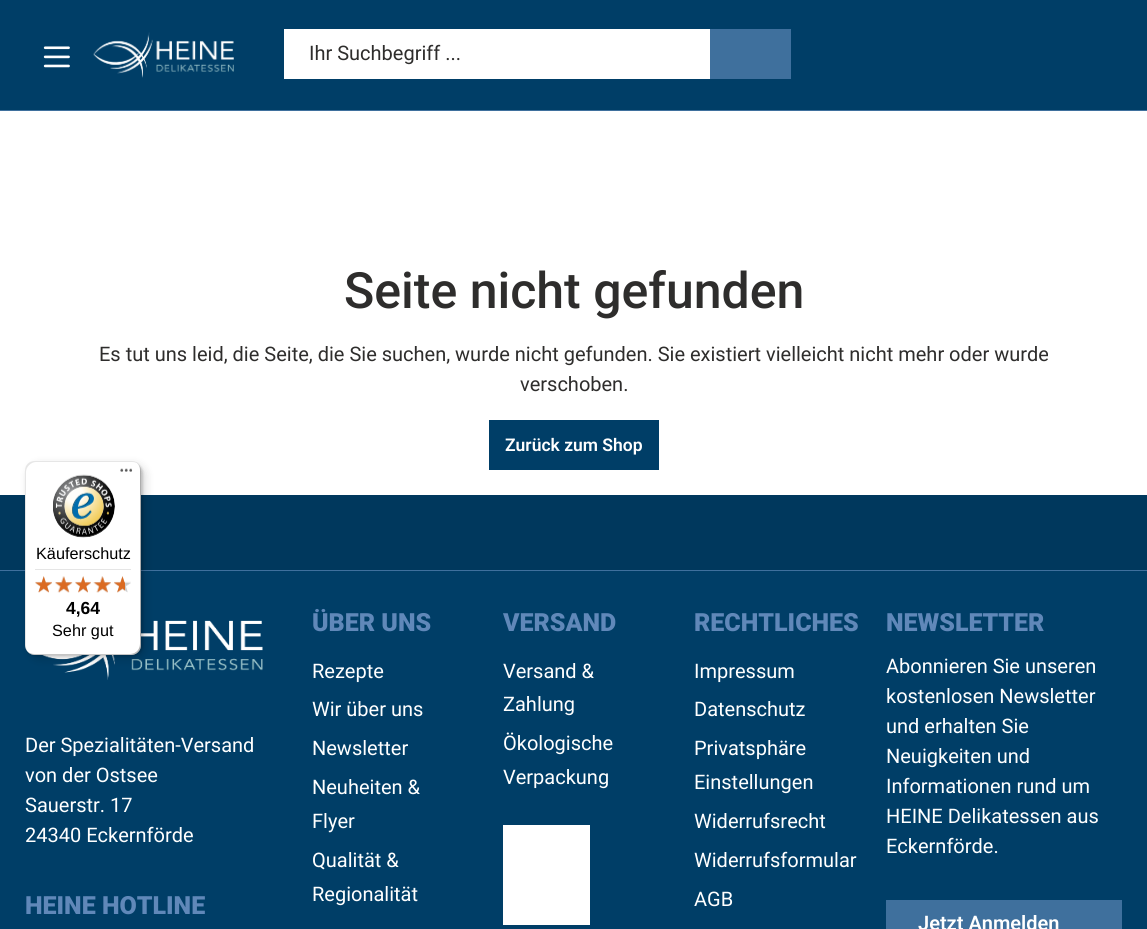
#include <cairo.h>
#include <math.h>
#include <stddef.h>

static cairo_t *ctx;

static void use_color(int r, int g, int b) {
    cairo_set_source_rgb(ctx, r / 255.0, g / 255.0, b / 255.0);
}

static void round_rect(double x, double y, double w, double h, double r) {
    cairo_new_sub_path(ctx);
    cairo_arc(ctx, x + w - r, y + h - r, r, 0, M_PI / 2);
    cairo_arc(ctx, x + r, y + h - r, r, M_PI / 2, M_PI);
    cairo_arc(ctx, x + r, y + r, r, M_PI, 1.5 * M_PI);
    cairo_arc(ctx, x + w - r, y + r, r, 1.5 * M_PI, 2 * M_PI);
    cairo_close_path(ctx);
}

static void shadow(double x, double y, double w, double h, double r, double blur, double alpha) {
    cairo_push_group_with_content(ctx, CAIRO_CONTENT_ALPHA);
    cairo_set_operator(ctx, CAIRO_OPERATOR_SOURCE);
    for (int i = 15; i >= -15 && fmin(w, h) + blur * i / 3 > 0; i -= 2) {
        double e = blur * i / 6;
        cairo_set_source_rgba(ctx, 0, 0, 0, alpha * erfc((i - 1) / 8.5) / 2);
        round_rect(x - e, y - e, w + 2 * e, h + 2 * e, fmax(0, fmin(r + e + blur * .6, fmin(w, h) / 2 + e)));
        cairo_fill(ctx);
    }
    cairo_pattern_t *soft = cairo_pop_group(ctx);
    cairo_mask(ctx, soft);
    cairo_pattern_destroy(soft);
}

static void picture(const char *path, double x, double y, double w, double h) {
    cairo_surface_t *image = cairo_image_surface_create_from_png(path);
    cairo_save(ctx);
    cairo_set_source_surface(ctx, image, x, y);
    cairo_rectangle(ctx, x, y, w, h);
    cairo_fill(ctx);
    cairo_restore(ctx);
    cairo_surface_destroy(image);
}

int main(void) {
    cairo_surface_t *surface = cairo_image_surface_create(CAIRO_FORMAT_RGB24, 1147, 929);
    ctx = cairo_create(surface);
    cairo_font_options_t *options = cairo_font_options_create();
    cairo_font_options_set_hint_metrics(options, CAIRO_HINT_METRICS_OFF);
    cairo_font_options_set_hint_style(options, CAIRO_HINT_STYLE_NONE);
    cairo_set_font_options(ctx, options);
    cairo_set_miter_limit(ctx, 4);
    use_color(255, 255, 255);
    cairo_paint(ctx);
    use_color(0, 62, 103);
    cairo_rectangle(ctx, 0, 0, 1147, 110);
    cairo_fill(ctx);
    picture("img1.png", 43, 46, 27, 22);
    picture("img2.png", 93, 32, 141, 46);
    use_color(255, 255, 255);
    cairo_rectangle(ctx, 284, 29, 426, 50);
    cairo_fill(ctx);
    cairo_select_font_face(ctx, "Roboto", CAIRO_FONT_SLANT_NORMAL, CAIRO_FONT_WEIGHT_NORMAL);
    cairo_set_font_size(ctx, 20);
    use_color(46, 45, 44);
    cairo_move_to(ctx, 309, 60);
    cairo_show_text(ctx, "Ihr Suchbegriff ...");
    use_color(63, 112, 157);
    cairo_rectangle(ctx, 710, 29, 81, 50);
    cairo_fill(ctx);
    cairo_rectangle(ctx, 0, 110, 1147, 1);
    cairo_fill(ctx);
    cairo_select_font_face(ctx, "Roboto Medium", CAIRO_FONT_SLANT_NORMAL, CAIRO_FONT_WEIGHT_NORMAL);
    cairo_set_font_size(ctx, 50);
    use_color(46, 45, 44);
    cairo_move_to(ctx, 344, 308);
    cairo_show_text(ctx, "Seite nicht gefunden");
    cairo_select_font_face(ctx, "Roboto", CAIRO_FONT_SLANT_NORMAL, CAIRO_FONT_WEIGHT_NORMAL);
    cairo_set_font_size(ctx, 20);
    cairo_move_to(ctx, 99, 361);
    cairo_show_text(ctx, "Es tut uns leid, die Seite, die Sie suchen, wurde nicht gefunden. Sie existiert vielleicht nicht mehr oder wurde");
    cairo_move_to(ctx, 520, 391);
    cairo_show_text(ctx, "verschoben.");
    use_color(0, 62, 103);
    cairo_rectangle(ctx, 489, 420, 170, 50);
    cairo_fill(ctx);
    cairo_select_font_face(ctx, "Roboto SemiBold", CAIRO_FONT_SLANT_NORMAL, CAIRO_FONT_WEIGHT_NORMAL);
    cairo_set_font_size(ctx, 17.5);
    use_color(255, 255, 255);
    cairo_move_to(ctx, 505, 451);
    cairo_show_text(ctx, "Zurück zum Shop");
    use_color(0, 62, 103);
    cairo_rectangle(ctx, 0, 571, 1147, 358);
    cairo_fill(ctx);
    use_color(0, 56, 93);
    cairo_rectangle(ctx, 0, 495, 1147, 75);
    cairo_fill(ctx);
    use_color(63, 112, 157);
    cairo_rectangle(ctx, 0, 570, 1147, 1);
    cairo_fill(ctx);
    picture("img15.png", 42, 620, 221, 60);
    use_color(0, 0, 0);
    shadow(29, 465, 116, 194, 10, 5, 0.15);
    shadow(26, 463, 117, 193, 10, 1, 0.15);
    use_color(255, 255, 255);
    round_rect(25, 461, 116, 194, 10);
    cairo_fill(ctx);
    cairo_set_source_rgba(ctx, 0, 0, 0, 0.1);
    cairo_new_path(ctx);
    cairo_move_to(ctx, 36, 462);
    cairo_line_to(ctx, 132, 462);
    cairo_curve_to(ctx, 135, 462, 137, 463, 139, 464);
    cairo_curve_to(ctx, 137, 462, 134, 461, 131, 461);
    cairo_line_to(ctx, 35, 461);
    cairo_curve_to(ctx, 29, 461, 25, 465, 25, 471);
    cairo_line_to(ctx, 25, 645);
    cairo_curve_to(ctx, 25, 648, 26, 651, 28, 653);
    cairo_curve_to(ctx, 27, 651, 26, 649, 26, 646);
    cairo_line_to(ctx, 26, 472);
    cairo_curve_to(ctx, 26, 467, 31, 462, 36, 462);
    cairo_close_path(ctx);
    cairo_fill(ctx);
    cairo_set_source_rgba(ctx, 0, 0, 0, 0.2);
    cairo_new_path(ctx);
    cairo_move_to(ctx, 27, 652);
    cairo_curve_to(ctx, 29, 654, 32, 655, 35, 655);
    cairo_line_to(ctx, 131, 655);
    cairo_curve_to(ctx, 137, 655, 141, 651, 141, 645);
    cairo_line_to(ctx, 141, 471);
    cairo_curve_to(ctx, 141, 469, 140, 466, 139, 465);
    cairo_curve_to(ctx, 140, 466, 140, 468, 140, 470);
    cairo_line_to(ctx, 140, 644);
    cairo_curve_to(ctx, 140, 649, 136, 654, 130, 654);
    cairo_line_to(ctx, 34, 654);
    cairo_curve_to(ctx, 31, 654, 29, 653, 27, 652);
    cairo_close_path(ctx);
    cairo_fill(ctx);
    cairo_set_source_rgba(ctx, 0.196, 0.196, 0.196, 0.2);
    cairo_new_path(ctx);
    cairo_move_to(ctx, 27, 651);
    cairo_curve_to(ctx, 29, 654, 32, 655, 35, 655);
    cairo_line_to(ctx, 131, 655);
    cairo_curve_to(ctx, 137, 655, 141, 651, 141, 645);
    cairo_line_to(ctx, 141, 471);
    cairo_curve_to(ctx, 141, 468, 140, 465, 137, 463);
    cairo_curve_to(ctx, 139, 465, 140, 468, 140, 470);
    cairo_line_to(ctx, 140, 644);
    cairo_curve_to(ctx, 140, 650, 136, 654, 130, 654);
    cairo_line_to(ctx, 34, 654);
    cairo_curve_to(ctx, 32, 654, 29, 653, 27, 651);
    cairo_close_path(ctx);
    cairo_fill(ctx);
    picture("img3.png", 120, 468, 13, 4);
    cairo_set_source_rgba(ctx, 1, 1, 1, 0.3);
    cairo_set_fill_rule(ctx, CAIRO_FILL_RULE_EVEN_ODD);
    cairo_new_path(ctx);
    cairo_move_to(ctx, 27, 651);
    cairo_curve_to(ctx, 29, 654, 32, 655, 35, 655);
    cairo_line_to(ctx, 131, 655);
    cairo_curve_to(ctx, 137, 655, 141, 651, 141, 645);
    cairo_line_to(ctx, 141, 644);
    cairo_curve_to(ctx, 141, 650, 136, 654, 131, 654);
    cairo_line_to(ctx, 34, 654);
    cairo_curve_to(ctx, 32, 654, 29, 653, 27, 651);
    cairo_close_path(ctx);
    cairo_move_to(ctx, 139, 465);
    cairo_curve_to(ctx, 137, 462, 134, 461, 131, 461);
    cairo_curve_to(ctx, 134, 461, 137, 462, 139, 465);
    cairo_close_path(ctx);
    cairo_fill(ctx);
    picture("img4.png", 53, 474, 62, 64);
    cairo_select_font_face(ctx, "Liberation Sans", CAIRO_FONT_SLANT_NORMAL, CAIRO_FONT_WEIGHT_NORMAL);
    cairo_set_font_size(ctx, 16.25);
    use_color(0, 0, 0);
    cairo_move_to(ctx, 36, 559);
    cairo_show_text(ctx, "Käuferschutz");
    use_color(229, 229, 229);
    cairo_rectangle(ctx, 35, 569, 96, 1);
    cairo_fill(ctx);
    picture("img5.png", 35, 576, 17, 16);
    picture("img6.png", 55, 576, 17, 17);
    picture("img7.png", 75, 576, 16, 17);
    picture("img8.png", 93, 576, 18, 17);
    picture("img9.png", 114, 576, 17, 17);
    picture("img10.png", 35, 576, 17, 17);
    picture("img11.png", 55, 576, 18, 17);
    picture("img12.png", 75, 576, 16, 17);
    picture("img13.png", 93, 576, 18, 17);
    picture("img14.png", 114, 576, 11, 17);
    cairo_select_font_face(ctx, "Liberation Sans", CAIRO_FONT_SLANT_NORMAL, CAIRO_FONT_WEIGHT_BOLD);
    cairo_set_font_size(ctx, 17.5);
    use_color(0, 0, 0);
    cairo_move_to(ctx, 66, 614);
    cairo_show_text(ctx, "4,64");
    cairo_select_font_face(ctx, "Liberation Sans", CAIRO_FONT_SLANT_NORMAL, CAIRO_FONT_WEIGHT_NORMAL);
    cairo_set_font_size(ctx, 16.25);
    cairo_move_to(ctx, 52, 636);
    cairo_show_text(ctx, "Sehr gut");
    cairo_select_font_face(ctx, "Roboto", CAIRO_FONT_SLANT_NORMAL, CAIRO_FONT_WEIGHT_NORMAL);
    cairo_set_font_size(ctx, 20);
    use_color(255, 255, 255);
    cairo_move_to(ctx, 25, 752);
    cairo_show_text(ctx, "Der Spezialitäten-Versand");
    cairo_move_to(ctx, 25, 782);
    cairo_show_text(ctx, "von der Ostsee");
    cairo_move_to(ctx, 25, 812);
    cairo_show_text(ctx, "Sauerstr. 17");
    cairo_move_to(ctx, 25, 842);
    cairo_show_text(ctx, "24340 Eckernförde");
    cairo_select_font_face(ctx, "Roboto Black", CAIRO_FONT_SLANT_NORMAL, CAIRO_FONT_WEIGHT_NORMAL);
    cairo_set_font_size(ctx, 25);
    use_color(96, 136, 185);
    cairo_move_to(ctx, 25, 914);
    cairo_show_text(ctx, "HEINE HOTLINE");
    cairo_move_to(ctx, 312, 631);
    cairo_show_text(ctx, "ÜBER UNS");
    cairo_select_font_face(ctx, "Roboto", CAIRO_FONT_SLANT_NORMAL, CAIRO_FONT_WEIGHT_NORMAL);
    cairo_set_font_size(ctx, 20);
    use_color(255, 255, 255);
    cairo_move_to(ctx, 312, 678);
    cairo_show_text(ctx, "Rezepte");
    cairo_move_to(ctx, 312, 716);
    cairo_show_text(ctx, "Wir über uns");
    cairo_move_to(ctx, 312, 755);
    cairo_show_text(ctx, "Newsletter");
    cairo_move_to(ctx, 312, 794);
    cairo_show_text(ctx, "Neuheiten &");
    cairo_move_to(ctx, 312, 828);
    cairo_show_text(ctx, "Flyer");
    cairo_move_to(ctx, 312, 867);
    cairo_show_text(ctx, "Qualität &");
    cairo_move_to(ctx, 312, 901);
    cairo_show_text(ctx, "Regionalität");
    cairo_select_font_face(ctx, "Roboto Black", CAIRO_FONT_SLANT_NORMAL, CAIRO_FONT_WEIGHT_NORMAL);
    cairo_set_font_size(ctx, 25);
    use_color(96, 136, 185);
    cairo_move_to(ctx, 503, 631);
    cairo_show_text(ctx, "VERSAND");
    cairo_select_font_face(ctx, "Roboto", CAIRO_FONT_SLANT_NORMAL, CAIRO_FONT_WEIGHT_NORMAL);
    cairo_set_font_size(ctx, 20);
    use_color(255, 255, 255);
    cairo_move_to(ctx, 503, 678);
    cairo_show_text(ctx, "Versand &");
    cairo_move_to(ctx, 503, 711);
    cairo_show_text(ctx, "Zahlung");
    cairo_move_to(ctx, 503, 750);
    cairo_show_text(ctx, "Ökologische");
    cairo_move_to(ctx, 503, 784);
    cairo_show_text(ctx, "Verpackung");
    cairo_rectangle(ctx, 503, 825, 87, 100);
    cairo_fill(ctx);
    cairo_select_font_face(ctx, "Roboto Black", CAIRO_FONT_SLANT_NORMAL, CAIRO_FONT_WEIGHT_NORMAL);
    cairo_set_font_size(ctx, 25);
    use_color(96, 136, 185);
    cairo_move_to(ctx, 694, 631);
    cairo_show_text(ctx, "RECHTLICHES");
    cairo_select_font_face(ctx, "Roboto", CAIRO_FONT_SLANT_NORMAL, CAIRO_FONT_WEIGHT_NORMAL);
    cairo_set_font_size(ctx, 20);
    use_color(255, 255, 255);
    cairo_move_to(ctx, 694, 678);
    cairo_show_text(ctx, "Impressum");
    cairo_move_to(ctx, 694, 716);
    cairo_show_text(ctx, "Datenschutz");
    cairo_move_to(ctx, 694, 755);
    cairo_show_text(ctx, "Privatsphäre");
    cairo_move_to(ctx, 694, 789);
    cairo_show_text(ctx, "Einstellungen");
    cairo_move_to(ctx, 694, 828);
    cairo_show_text(ctx, "Widerrufsrecht");
    cairo_move_to(ctx, 694, 867);
    cairo_show_text(ctx, "Widerrufsformular");
    cairo_move_to(ctx, 694, 906);
    cairo_show_text(ctx, "AGB");
    cairo_select_font_face(ctx, "Roboto Black", CAIRO_FONT_SLANT_NORMAL, CAIRO_FONT_WEIGHT_NORMAL);
    cairo_set_font_size(ctx, 25);
    use_color(96, 136, 185);
    cairo_move_to(ctx, 886, 631);
    cairo_show_text(ctx, "NEWSLETTER");
    cairo_select_font_face(ctx, "Roboto", CAIRO_FONT_SLANT_NORMAL, CAIRO_FONT_WEIGHT_NORMAL);
    cairo_set_font_size(ctx, 20);
    use_color(255, 255, 255);
    cairo_move_to(ctx, 886, 673);
    cairo_show_text(ctx, "Abonnieren Sie unseren");
    cairo_move_to(ctx, 886, 703);
    cairo_show_text(ctx, "kostenlosen Newsletter");
    cairo_move_to(ctx, 886, 733);
    cairo_show_text(ctx, "und erhalten Sie");
    cairo_move_to(ctx, 886, 763);
    cairo_show_text(ctx, "Neuigkeiten und");
    cairo_move_to(ctx, 886, 793);
    cairo_show_text(ctx, "Informationen rund um");
    cairo_move_to(ctx, 886, 823);
    cairo_show_text(ctx, "HEINE Delikatessen aus");
    cairo_move_to(ctx, 886, 853);
    cairo_show_text(ctx, "Eckernförde.");
    use_color(63, 112, 157);
    cairo_rectangle(ctx, 886, 900, 236, 29);
    cairo_fill(ctx);
    cairo_select_font_face(ctx, "Roboto SemiBold", CAIRO_FONT_SLANT_NORMAL, CAIRO_FONT_WEIGHT_NORMAL);
    use_color(255, 255, 255);
    cairo_move_to(ctx, 918, 930);
    cairo_show_text(ctx, "Jetzt Anmelden");
    cairo_surface_write_to_png(surface, "result.png");
    cairo_font_options_destroy(options);
    cairo_destroy(ctx);
    cairo_surface_destroy(surface);
    return 0;
}
